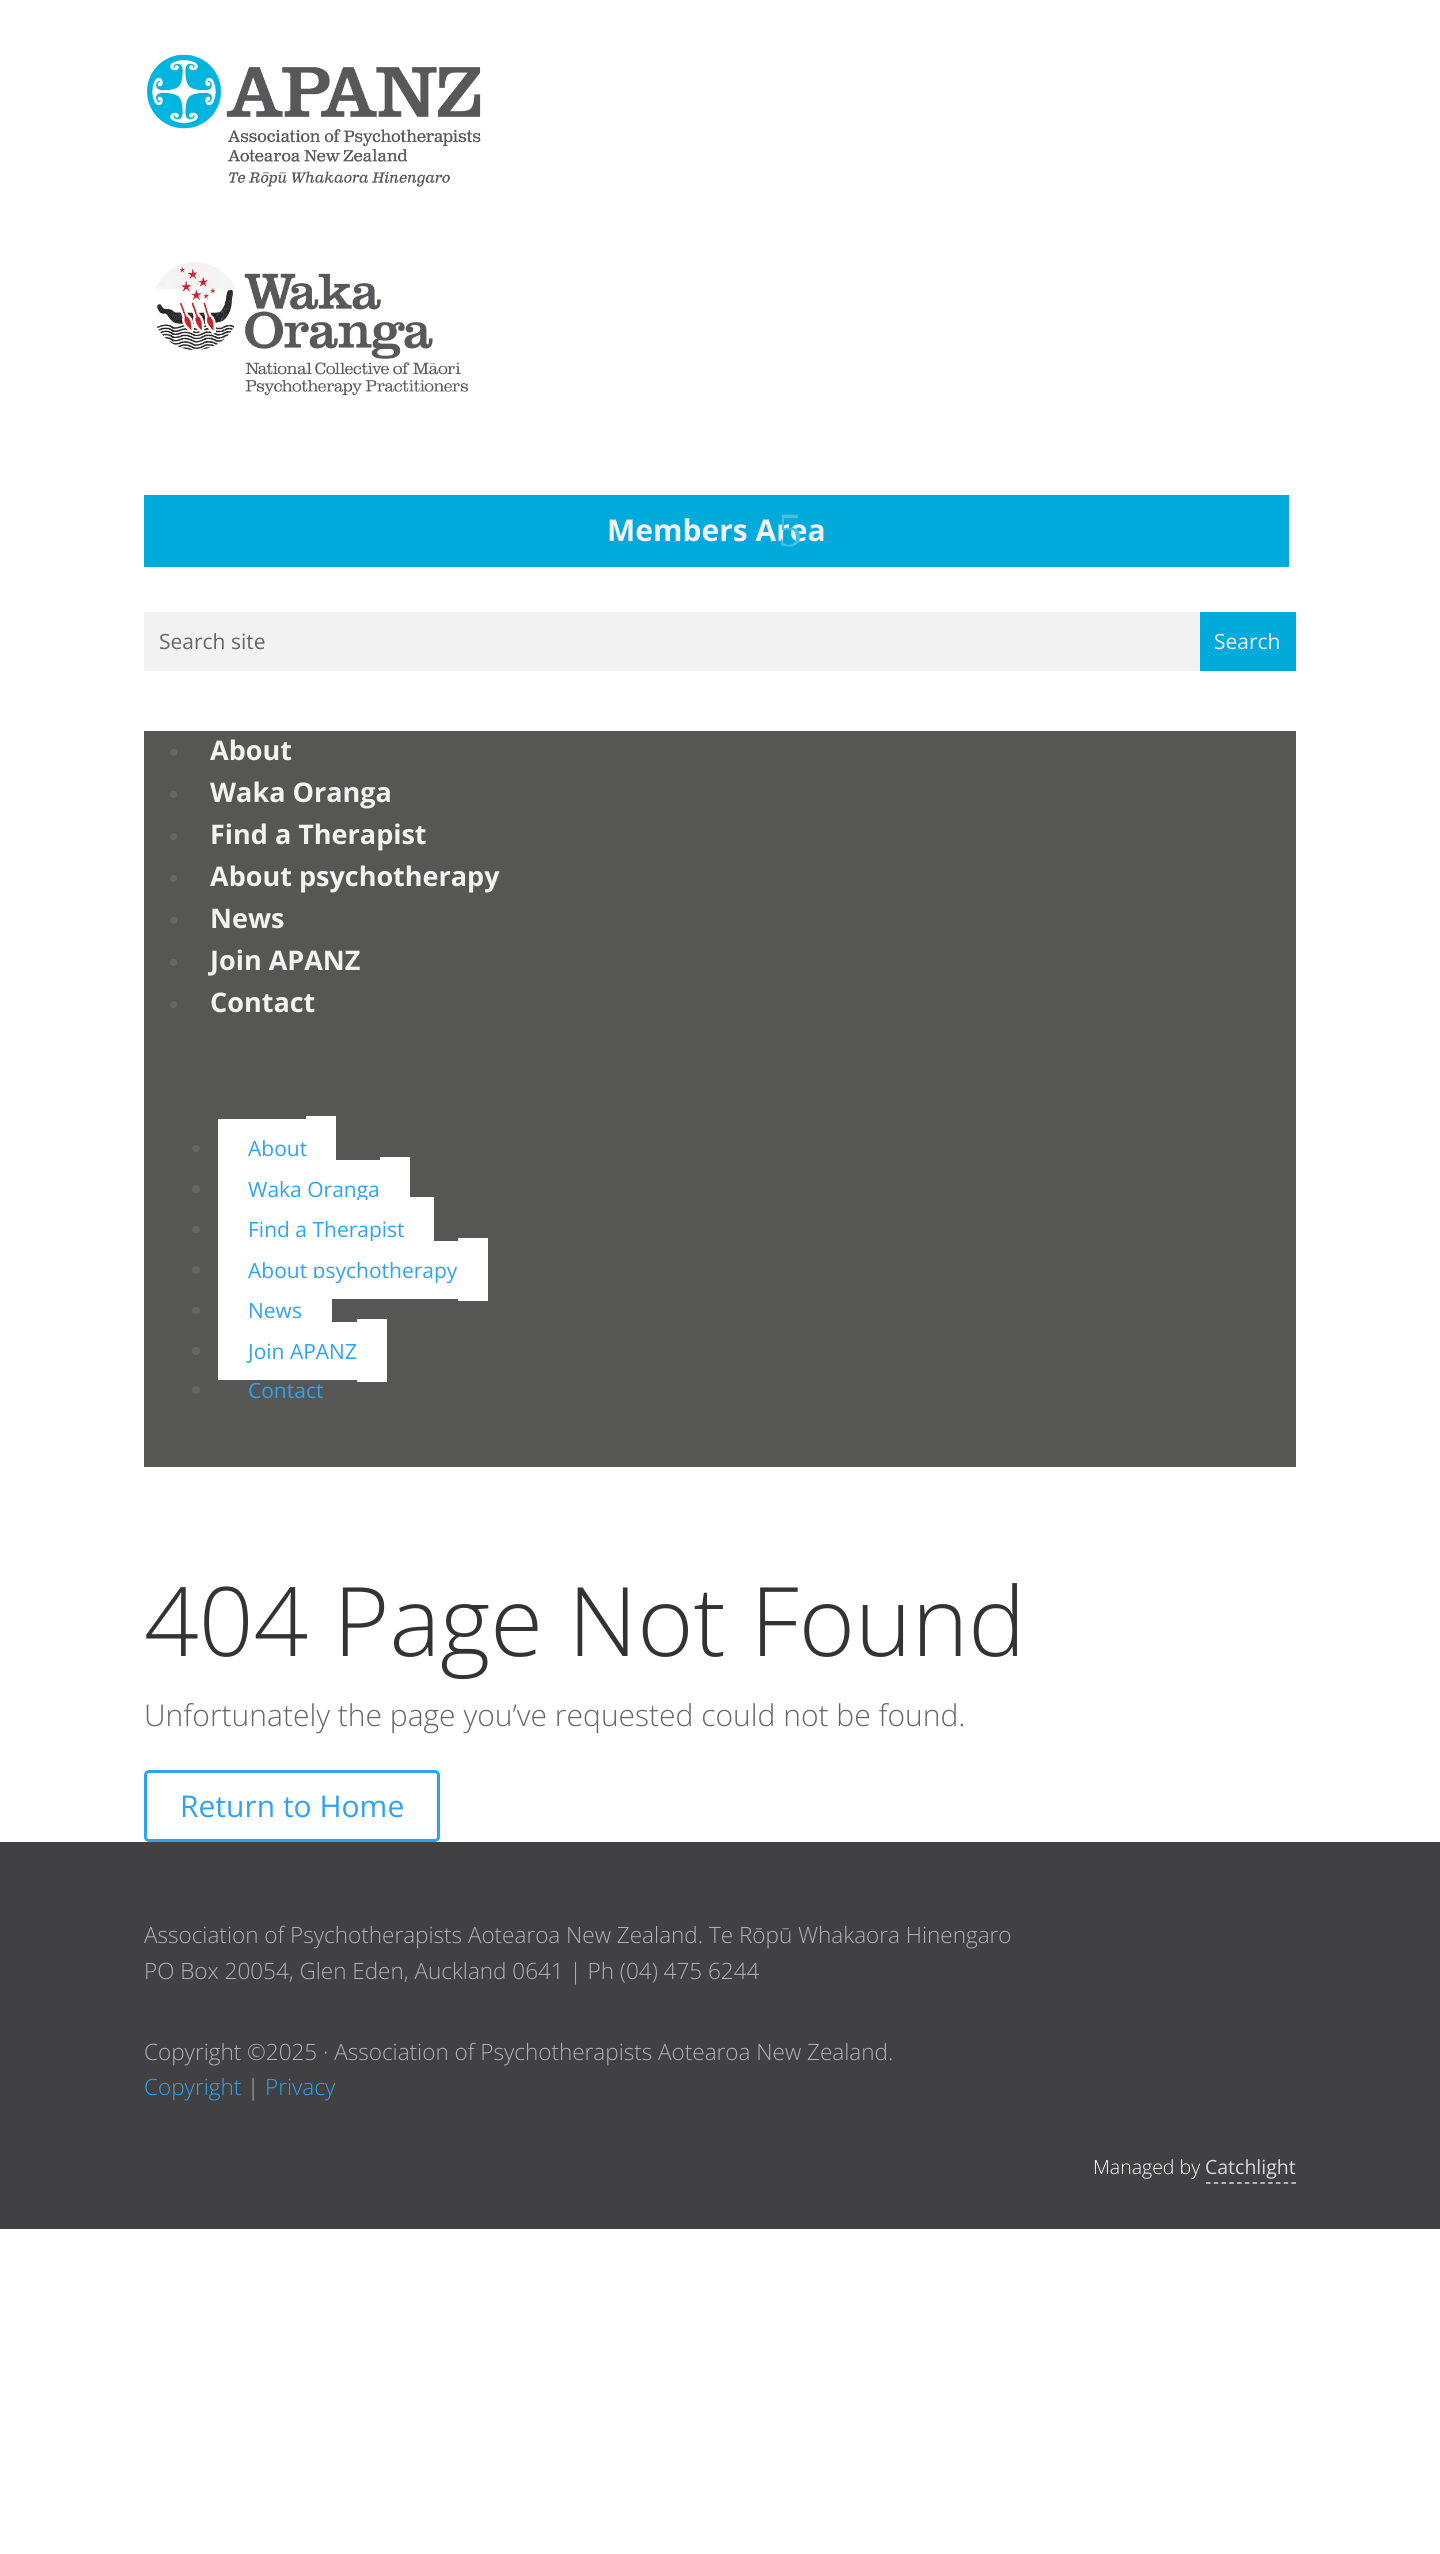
#include <cairo.h>
#include <math.h>
#include <stddef.h>

static cairo_t *ctx;

static void use_color(int r, int g, int b) {
    cairo_set_source_rgb(ctx, r / 255.0, g / 255.0, b / 255.0);
}

static void round_rect(double x, double y, double w, double h, double r) {
    cairo_new_sub_path(ctx);
    cairo_arc(ctx, x + w - r, y + h - r, r, 0, M_PI / 2);
    cairo_arc(ctx, x + r, y + h - r, r, M_PI / 2, M_PI);
    cairo_arc(ctx, x + r, y + r, r, M_PI, 1.5 * M_PI);
    cairo_arc(ctx, x + w - r, y + r, r, 1.5 * M_PI, 2 * M_PI);
    cairo_close_path(ctx);
}

static void picture(const char *path, double x, double y, double w, double h) {
    cairo_surface_t *image = cairo_image_surface_create_from_png(path);
    cairo_save(ctx);
    cairo_set_source_surface(ctx, image, x, y);
    cairo_rectangle(ctx, x, y, w, h);
    cairo_fill(ctx);
    cairo_restore(ctx);
    cairo_surface_destroy(image);
}

int main(void) {
    cairo_surface_t *surface = cairo_image_surface_create(CAIRO_FORMAT_RGB24, 1440, 2554);
    ctx = cairo_create(surface);
    cairo_font_options_t *options = cairo_font_options_create();
    cairo_font_options_set_hint_metrics(options, CAIRO_HINT_METRICS_OFF);
    cairo_font_options_set_hint_style(options, CAIRO_HINT_STYLE_NONE);
    cairo_set_font_options(ctx, options);
    cairo_set_miter_limit(ctx, 4);
    use_color(255, 255, 255);
    cairo_paint(ctx);
    picture("img1.png", 147, 54, 334, 133);
    picture("img2.png", 156, 262, 313, 134);
    use_color(0, 171, 219);
    cairo_rectangle(ctx, 144, 495, 1145, 72);
    cairo_fill(ctx);
    cairo_select_font_face(ctx, "Open Sans", CAIRO_FONT_SLANT_NORMAL, CAIRO_FONT_WEIGHT_BOLD);
    cairo_set_font_size(ctx, 30);
    use_color(242, 242, 242);
    cairo_move_to(ctx, 607, 541);
    cairo_show_text(ctx, "Members Area");
    cairo_select_font_face(ctx, "Liberation Serif", CAIRO_FONT_SLANT_NORMAL, CAIRO_FONT_WEIGHT_NORMAL);
    cairo_set_font_size(ctx, 48);
    use_color(68, 191, 225);
    cairo_move_to(ctx, 778, 546);
    cairo_show_text(ctx, "5");
    use_color(242, 242, 242);
    cairo_rectangle(ctx, 144, 612, 1056, 59);
    cairo_fill(ctx);
    cairo_select_font_face(ctx, "Open Sans", CAIRO_FONT_SLANT_NORMAL, CAIRO_FONT_WEIGHT_NORMAL);
    cairo_set_font_size(ctx, 21);
    use_color(102, 102, 102);
    cairo_move_to(ctx, 159, 649);
    cairo_show_text(ctx, "Search site");
    use_color(0, 171, 219);
    cairo_rectangle(ctx, 1200, 612, 96, 59);
    cairo_fill(ctx);
    use_color(242, 242, 242);
    cairo_move_to(ctx, 1214, 649);
    cairo_show_text(ctx, "Search");
    use_color(86, 86, 85);
    cairo_rectangle(ctx, 144, 731, 1152, 736);
    cairo_fill(ctx);
    use_color(102, 102, 102);
    cairo_arc(ctx, 173.5, 752.5, 3.5, 0, 2 * M_PI);
    cairo_fill(ctx);
    cairo_select_font_face(ctx, "Open Sans", CAIRO_FONT_SLANT_NORMAL, CAIRO_FONT_WEIGHT_BOLD);
    cairo_set_font_size(ctx, 27);
    use_color(242, 242, 242);
    cairo_move_to(ctx, 210, 760);
    cairo_show_text(ctx, "About");
    use_color(102, 102, 102);
    cairo_new_path(ctx);
    cairo_arc(ctx, 173.5, 794.5, 3.5, 0, 2 * M_PI);
    cairo_fill(ctx);
    use_color(242, 242, 242);
    cairo_move_to(ctx, 210, 802);
    cairo_show_text(ctx, "Waka Oranga");
    use_color(102, 102, 102);
    cairo_new_path(ctx);
    cairo_arc(ctx, 173.5, 836.5, 3.5, 0, 2 * M_PI);
    cairo_fill(ctx);
    use_color(242, 242, 242);
    cairo_move_to(ctx, 210, 844);
    cairo_show_text(ctx, "Find a Therapist");
    use_color(102, 102, 102);
    cairo_new_path(ctx);
    cairo_arc(ctx, 173.5, 878.5, 3.5, 0, 2 * M_PI);
    cairo_fill(ctx);
    use_color(242, 242, 242);
    cairo_move_to(ctx, 210, 886);
    cairo_show_text(ctx, "About psychotherapy");
    use_color(102, 102, 102);
    cairo_new_path(ctx);
    cairo_arc(ctx, 173.5, 920.5, 3.5, 0, 2 * M_PI);
    cairo_fill(ctx);
    use_color(242, 242, 242);
    cairo_move_to(ctx, 210, 928);
    cairo_show_text(ctx, "News");
    use_color(102, 102, 102);
    cairo_new_path(ctx);
    cairo_arc(ctx, 173.5, 962.5, 3.5, 0, 2 * M_PI);
    cairo_fill(ctx);
    use_color(242, 242, 242);
    cairo_move_to(ctx, 210, 970);
    cairo_show_text(ctx, "Join APANZ");
    use_color(102, 102, 102);
    cairo_new_path(ctx);
    cairo_arc(ctx, 173.5, 1004.5, 3.5, 0, 2 * M_PI);
    cairo_fill(ctx);
    use_color(242, 242, 242);
    cairo_move_to(ctx, 210, 1012);
    cairo_show_text(ctx, "Contact");
    use_color(102, 102, 102);
    round_rect(192, 1145, 8, 7, 3.5);
    cairo_fill(ctx);
    use_color(255, 255, 255);
    cairo_rectangle(ctx, 218, 1119, 88, 41);
    cairo_fill(ctx);
    cairo_rectangle(ctx, 306, 1116, 30, 44);
    cairo_fill(ctx);
    cairo_select_font_face(ctx, "Open Sans", CAIRO_FONT_SLANT_NORMAL, CAIRO_FONT_WEIGHT_NORMAL);
    cairo_set_font_size(ctx, 21);
    use_color(46, 163, 242);
    cairo_move_to(ctx, 248, 1156);
    cairo_show_text(ctx, "About");
    use_color(102, 102, 102);
    cairo_new_path(ctx);
    cairo_arc(ctx, 196, 1189, 4, 0, 2 * M_PI);
    cairo_fill(ctx);
    use_color(255, 255, 255);
    cairo_rectangle(ctx, 218, 1160, 162, 40);
    cairo_fill(ctx);
    use_color(46, 163, 242);
    cairo_move_to(ctx, 248, 1197);
    cairo_show_text(ctx, "Waka Oranga");
    use_color(255, 255, 255);
    cairo_rectangle(ctx, 380, 1157, 30, 43);
    cairo_fill(ctx);
    use_color(102, 102, 102);
    round_rect(192, 1226, 8, 7, 3.5);
    cairo_fill(ctx);
    use_color(255, 255, 255);
    cairo_rectangle(ctx, 218, 1200, 186, 41);
    cairo_fill(ctx);
    use_color(46, 163, 242);
    cairo_move_to(ctx, 248, 1237);
    cairo_show_text(ctx, "Find a Therapist");
    use_color(255, 255, 255);
    cairo_rectangle(ctx, 404, 1197, 30, 44);
    cairo_fill(ctx);
    use_color(102, 102, 102);
    cairo_arc(ctx, 196, 1270, 4, 0, 2 * M_PI);
    cairo_fill(ctx);
    use_color(255, 255, 255);
    cairo_rectangle(ctx, 218, 1241, 240, 58);
    cairo_fill(ctx);
    use_color(46, 163, 242);
    cairo_move_to(ctx, 248, 1278);
    cairo_show_text(ctx, "About psychotherapy");
    use_color(255, 255, 255);
    cairo_rectangle(ctx, 458, 1238, 30, 63);
    cairo_fill(ctx);
    use_color(102, 102, 102);
    round_rect(192, 1307, 8, 7, 3.5);
    cairo_fill(ctx);
    use_color(255, 255, 255);
    cairo_rectangle(ctx, 218, 1299, 84, 23);
    cairo_fill(ctx);
    use_color(46, 163, 242);
    cairo_move_to(ctx, 248, 1318);
    cairo_show_text(ctx, "News");
    use_color(255, 255, 255);
    cairo_rectangle(ctx, 302, 1278, 30, 44);
    cairo_fill(ctx);
    use_color(102, 102, 102);
    cairo_arc(ctx, 196, 1351, 4, 0, 2 * M_PI);
    cairo_fill(ctx);
    use_color(255, 255, 255);
    cairo_rectangle(ctx, 218, 1322, 139, 58);
    cairo_fill(ctx);
    use_color(46, 163, 242);
    cairo_move_to(ctx, 248, 1359);
    cairo_show_text(ctx, "Join APANZ");
    use_color(255, 255, 255);
    cairo_rectangle(ctx, 357, 1319, 30, 63);
    cairo_fill(ctx);
    use_color(102, 102, 102);
    cairo_arc(ctx, 196, 1390, 4, 0, 2 * M_PI);
    cairo_fill(ctx);
    use_color(46, 163, 242);
    cairo_move_to(ctx, 248, 1398);
    cairo_show_text(ctx, "Contact");
    cairo_select_font_face(ctx, "Open Sans Light", CAIRO_FONT_SLANT_NORMAL, CAIRO_FONT_WEIGHT_NORMAL);
    cairo_set_font_size(ctx, 96);
    use_color(51, 51, 51);
    cairo_move_to(ctx, 144, 1656);
    cairo_show_text(ctx, "404 Page Not Found");
    cairo_set_font_size(ctx, 30);
    use_color(102, 102, 102);
    cairo_move_to(ctx, 144, 1726);
    cairo_show_text(ctx, "Unfortunately the page you’ve requested could not be found.");
    round_rect(145.5, 1771.5, 293, 69, 3.5);
    use_color(46, 163, 242);
    cairo_set_line_width(ctx, 3);
    cairo_stroke(ctx);
    cairo_select_font_face(ctx, "Open Sans", CAIRO_FONT_SLANT_NORMAL, CAIRO_FONT_WEIGHT_NORMAL);
    cairo_move_to(ctx, 180, 1817);
    cairo_show_text(ctx, "Return to Home");
    use_color(65, 64, 66);
    cairo_rectangle(ctx, 0, 1842, 1440, 387);
    cairo_fill(ctx);
    cairo_select_font_face(ctx, "Open Sans Light", CAIRO_FONT_SLANT_NORMAL, CAIRO_FONT_WEIGHT_NORMAL);
    cairo_set_font_size(ctx, 22.5);
    use_color(178, 178, 178);
    cairo_move_to(ctx, 144, 1943);
    cairo_show_text(ctx, "Association of Psychotherapists Aotearoa New Zealand. Te Rōpū Whakaora Hinengaro");
    cairo_move_to(ctx, 144, 1979);
    cairo_show_text(ctx, "PO Box 20054, Glen Eden, Auckland 0641 | Ph (04) 475 6244");
    cairo_move_to(ctx, 144, 2060);
    cairo_show_text(ctx, "Copyright ©2025 · Association of Psychotherapists Aotearoa New Zealand.");
    use_color(46, 163, 242);
    cairo_move_to(ctx, 144, 2095);
    cairo_show_text(ctx, "Copyright");
    use_color(178, 178, 178);
    cairo_move_to(ctx, 247, 2095);
    cairo_show_text(ctx, "|");
    use_color(46, 163, 242);
    cairo_move_to(ctx, 265, 2095);
    cairo_show_text(ctx, "Privacy");
    cairo_set_font_size(ctx, 19.5);
    use_color(255, 255, 255);
    cairo_move_to(ctx, 1093, 2174);
    cairo_show_text(ctx, "Managed by");
    cairo_select_font_face(ctx, "Open Sans", CAIRO_FONT_SLANT_NORMAL, CAIRO_FONT_WEIGHT_NORMAL);
    use_color(217, 217, 217);
    cairo_move_to(ctx, 1205, 2174);
    cairo_show_text(ctx, "Catchlight");
    cairo_new_path(ctx);
    cairo_move_to(ctx, 1206, 2183);
    cairo_line_to(ctx, 1296, 2183);
    cairo_set_line_width(ctx, 1.5);
    cairo_set_dash(ctx, (double[]){4.5, 3.27}, 2, 0);
    cairo_stroke(ctx);
    cairo_surface_write_to_png(surface, "result.png");
    cairo_font_options_destroy(options);
    cairo_destroy(ctx);
    cairo_surface_destroy(surface);
    return 0;
}
